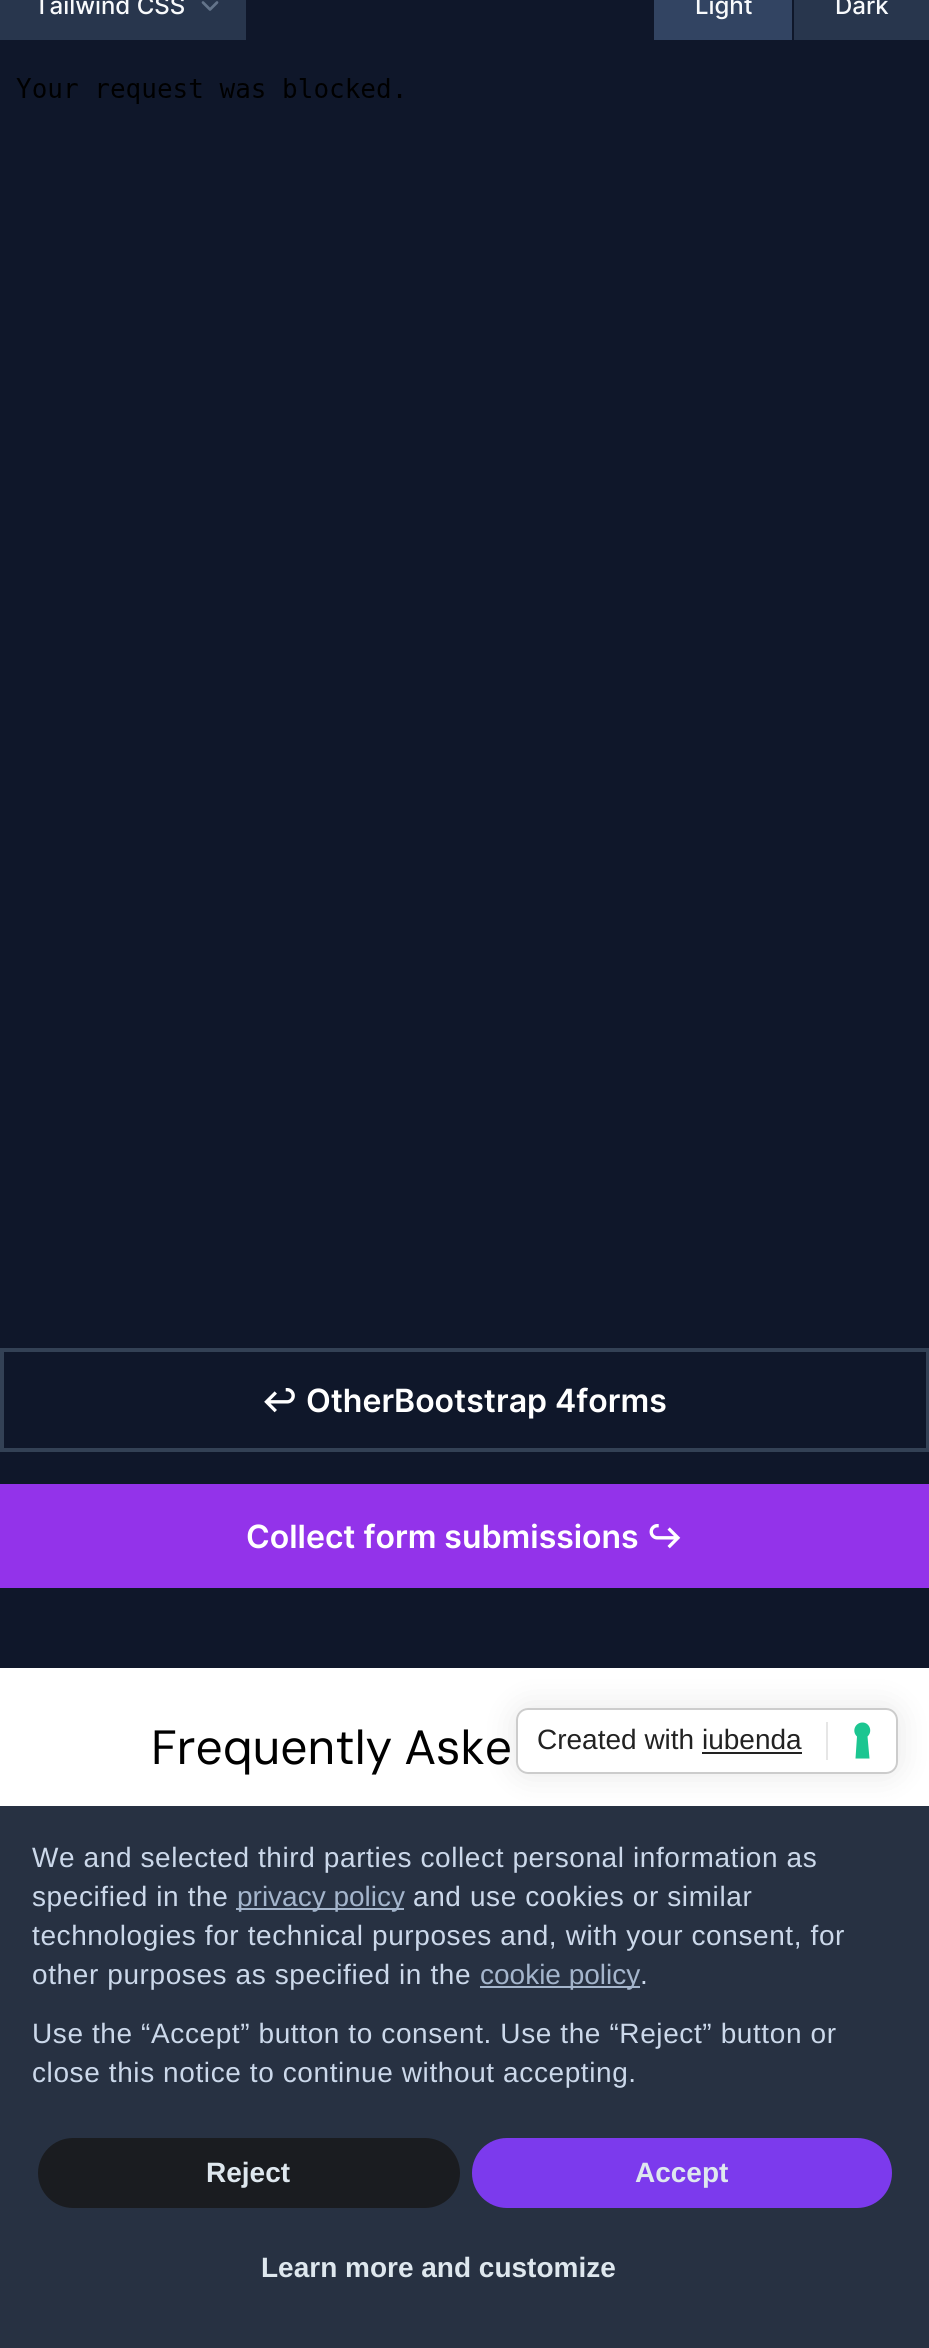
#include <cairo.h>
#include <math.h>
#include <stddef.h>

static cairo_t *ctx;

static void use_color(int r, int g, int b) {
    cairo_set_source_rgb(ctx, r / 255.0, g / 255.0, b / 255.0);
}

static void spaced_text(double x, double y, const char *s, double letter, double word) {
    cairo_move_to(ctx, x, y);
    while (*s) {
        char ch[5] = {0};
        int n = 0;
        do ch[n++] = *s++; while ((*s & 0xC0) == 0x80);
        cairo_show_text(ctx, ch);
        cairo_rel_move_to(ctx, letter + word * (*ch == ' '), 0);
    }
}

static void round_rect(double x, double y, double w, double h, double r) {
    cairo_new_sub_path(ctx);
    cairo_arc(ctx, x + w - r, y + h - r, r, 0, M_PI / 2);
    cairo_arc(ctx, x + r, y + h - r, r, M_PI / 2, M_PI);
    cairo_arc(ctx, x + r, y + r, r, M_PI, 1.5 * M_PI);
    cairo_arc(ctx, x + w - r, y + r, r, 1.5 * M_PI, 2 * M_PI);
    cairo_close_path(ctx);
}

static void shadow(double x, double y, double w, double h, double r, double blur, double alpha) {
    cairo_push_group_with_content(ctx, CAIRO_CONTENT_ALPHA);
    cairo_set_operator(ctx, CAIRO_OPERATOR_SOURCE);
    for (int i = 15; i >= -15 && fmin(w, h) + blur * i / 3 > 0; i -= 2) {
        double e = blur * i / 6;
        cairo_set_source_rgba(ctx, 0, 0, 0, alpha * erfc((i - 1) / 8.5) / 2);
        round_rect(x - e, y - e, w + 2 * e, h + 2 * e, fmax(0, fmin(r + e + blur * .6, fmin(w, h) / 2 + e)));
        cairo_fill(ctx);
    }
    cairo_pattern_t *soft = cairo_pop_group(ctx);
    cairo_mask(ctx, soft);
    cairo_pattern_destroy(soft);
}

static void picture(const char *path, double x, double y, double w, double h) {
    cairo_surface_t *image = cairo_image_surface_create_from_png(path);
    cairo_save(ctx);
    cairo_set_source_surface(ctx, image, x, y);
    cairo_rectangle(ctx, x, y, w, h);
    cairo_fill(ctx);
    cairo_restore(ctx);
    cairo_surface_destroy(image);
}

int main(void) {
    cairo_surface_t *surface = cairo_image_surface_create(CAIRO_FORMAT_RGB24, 929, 2348);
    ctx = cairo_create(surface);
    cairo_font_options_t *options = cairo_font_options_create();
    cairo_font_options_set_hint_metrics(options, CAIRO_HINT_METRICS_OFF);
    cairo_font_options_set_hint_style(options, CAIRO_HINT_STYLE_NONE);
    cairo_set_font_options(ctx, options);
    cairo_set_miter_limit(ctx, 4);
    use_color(255, 255, 255);
    cairo_paint(ctx);
    use_color(15, 23, 42);
    cairo_rectangle(ctx, 0, 0, 929, 1668);
    cairo_fill(ctx);
    use_color(40, 54, 77);
    cairo_rectangle(ctx, 0, 0, 246, 40);
    cairo_fill(ctx);
    cairo_new_path(ctx);
    cairo_move_to(ctx, 203, 2.5);
    cairo_line_to(ctx, 210, 9.5);
    cairo_line_to(ctx, 217, 2.5);
    use_color(100, 116, 139);
    cairo_set_line_width(ctx, 2.7);
    cairo_set_line_cap(ctx, CAIRO_LINE_CAP_ROUND);
    cairo_set_line_join(ctx, CAIRO_LINE_JOIN_ROUND);
    cairo_stroke(ctx);
    cairo_select_font_face(ctx, "Inter Medium", CAIRO_FONT_SLANT_NORMAL, CAIRO_FONT_WEIGHT_NORMAL);
    cairo_set_font_size(ctx, 24);
    use_color(248, 250, 252);
    cairo_move_to(ctx, 34, 14);
    cairo_show_text(ctx, "Tailwind CSS");
    use_color(50, 68, 98);
    cairo_new_path(ctx);
    cairo_move_to(ctx, 662, -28);
    cairo_line_to(ctx, 792, -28);
    cairo_line_to(ctx, 792, 40);
    cairo_line_to(ctx, 654, 40);
    cairo_line_to(ctx, 654, -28);
    cairo_close_path(ctx);
    cairo_fill(ctx);
    use_color(248, 250, 252);
    cairo_move_to(ctx, 695, 14);
    cairo_show_text(ctx, "Light");
    use_color(40, 54, 77);
    cairo_rectangle(ctx, 794, 0, 135, 40);
    cairo_fill(ctx);
    use_color(248, 250, 252);
    cairo_move_to(ctx, 835, 14);
    cairo_show_text(ctx, "Dark");
    picture("img1.png", 16, 78, 386, 26);
    cairo_rectangle(ctx, 2, 1350, 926, 100);
    use_color(51, 65, 85);
    cairo_set_line_width(ctx, 4);
    cairo_set_line_cap(ctx, CAIRO_LINE_CAP_BUTT);
    cairo_set_line_join(ctx, CAIRO_LINE_JOIN_MITER);
    cairo_stroke(ctx);
    cairo_select_font_face(ctx, "Inter SemiBold", CAIRO_FONT_SLANT_NORMAL, CAIRO_FONT_WEIGHT_NORMAL);
    cairo_set_font_size(ctx, 32);
    use_color(255, 255, 255);
    cairo_move_to(ctx, 261, 1412);
    cairo_show_text(ctx, "↩ OtherBootstrap 4forms");
    use_color(147, 51, 234);
    cairo_rectangle(ctx, 0, 1484, 929, 104);
    cairo_fill(ctx);
    use_color(255, 255, 255);
    cairo_move_to(ctx, 246, 1548);
    cairo_show_text(ctx, "Collect form submissions ↪");
    cairo_select_font_face(ctx, "DM Sans", CAIRO_FONT_SLANT_NORMAL, CAIRO_FONT_WEIGHT_NORMAL);
    cairo_set_font_size(ctx, 48);
    use_color(0, 0, 0);
    spaced_text(151, 1764, "Frequently Aske", 0, -1);
    use_color(0, 0, 0);
    shadow(516, 1708, 382, 66, 12, 16, 0.1);
    use_color(255, 255, 255);
    round_rect(516, 1708, 382, 66, 12);
    cairo_fill(ctx);
    use_color(28, 198, 145);
    cairo_set_fill_rule(ctx, CAIRO_FILL_RULE_EVEN_ODD);
    cairo_new_path(ctx);
    cairo_move_to(ctx, 862.5, 1722.5);
    cairo_curve_to(ctx, 869.5, 1722.5, 873, 1731.5, 867.5, 1736.5);
    cairo_line_to(ctx, 869.5, 1758.5);
    cairo_line_to(ctx, 855.5, 1758.5);
    cairo_line_to(ctx, 857, 1736.5);
    cairo_curve_to(ctx, 851.5, 1731.5, 855, 1722.5, 862.5, 1722.5);
    cairo_close_path(ctx);
    cairo_fill(ctx);
    round_rect(517, 1709, 380, 64, 11);
    use_color(204, 204, 204);
    cairo_set_line_width(ctx, 2);
    cairo_stroke(ctx);
    use_color(230, 230, 230);
    cairo_rectangle(ctx, 826, 1722, 2, 38);
    cairo_fill(ctx);
    cairo_select_font_face(ctx, "Liberation Sans", CAIRO_FONT_SLANT_NORMAL, CAIRO_FONT_WEIGHT_NORMAL);
    cairo_set_font_size(ctx, 28);
    use_color(34, 34, 34);
    cairo_move_to(ctx, 537, 1749);
    cairo_show_text(ctx, "Created with iubenda");
    cairo_rectangle(ctx, 702, 1752, 100, 2);
    cairo_fill(ctx);
    cairo_set_source_rgba(ctx, 0.118, 0.161, 0.231, 0.96);
    cairo_rectangle(ctx, 0, 1806, 929, 542);
    cairo_fill(ctx);
    use_color(203, 216, 234);
    spaced_text(32, 1867, "We and selected third parties collect personal information as", 0.6, 0);
    spaced_text(32, 1906, "specified in the", 0.6, 0);
    use_color(164, 181, 204);
    cairo_rectangle(ctx, 236, 1908, 168, 2);
    cairo_fill(ctx);
    cairo_move_to(ctx, 237, 1906);
    cairo_show_text(ctx, "privacy policy");
    use_color(203, 216, 234);
    spaced_text(413, 1906, "and use cookies or similar", 0.6, 0);
    spaced_text(32, 1945, "technologies for technical purposes and, with your consent, for", 0.6, 0);
    spaced_text(32, 1984, "other purposes as specified in the", 0.6, 0);
    use_color(164, 181, 204);
    cairo_rectangle(ctx, 480, 1986, 160, 2);
    cairo_fill(ctx);
    cairo_move_to(ctx, 480, 1984);
    cairo_show_text(ctx, "cookie policy");
    use_color(203, 216, 234);
    spaced_text(640, 1984, ".", 0.6, 0);
    spaced_text(32, 2043, "Use the “Accept” button to consent. Use the “Reject” button or", 0.6, 0);
    spaced_text(32, 2082, "close this notice to continue without accepting.", 0.6, 0);
    use_color(26, 28, 32);
    round_rect(38, 2138, 422, 70, 35);
    cairo_fill(ctx);
    cairo_select_font_face(ctx, "Liberation Sans", CAIRO_FONT_SLANT_NORMAL, CAIRO_FONT_WEIGHT_BOLD);
    use_color(222, 231, 238);
    cairo_move_to(ctx, 206, 2182);
    cairo_show_text(ctx, "Reject");
    use_color(124, 58, 237);
    round_rect(472, 2138, 420, 70, 35);
    cairo_fill(ctx);
    use_color(222, 231, 238);
    cairo_move_to(ctx, 635, 2182);
    cairo_show_text(ctx, "Accept");
    cairo_move_to(ctx, 261, 2277);
    cairo_show_text(ctx, "Learn more and customize");
    cairo_surface_write_to_png(surface, "result.png");
    cairo_font_options_destroy(options);
    cairo_destroy(ctx);
    cairo_surface_destroy(surface);
    return 0;
}
